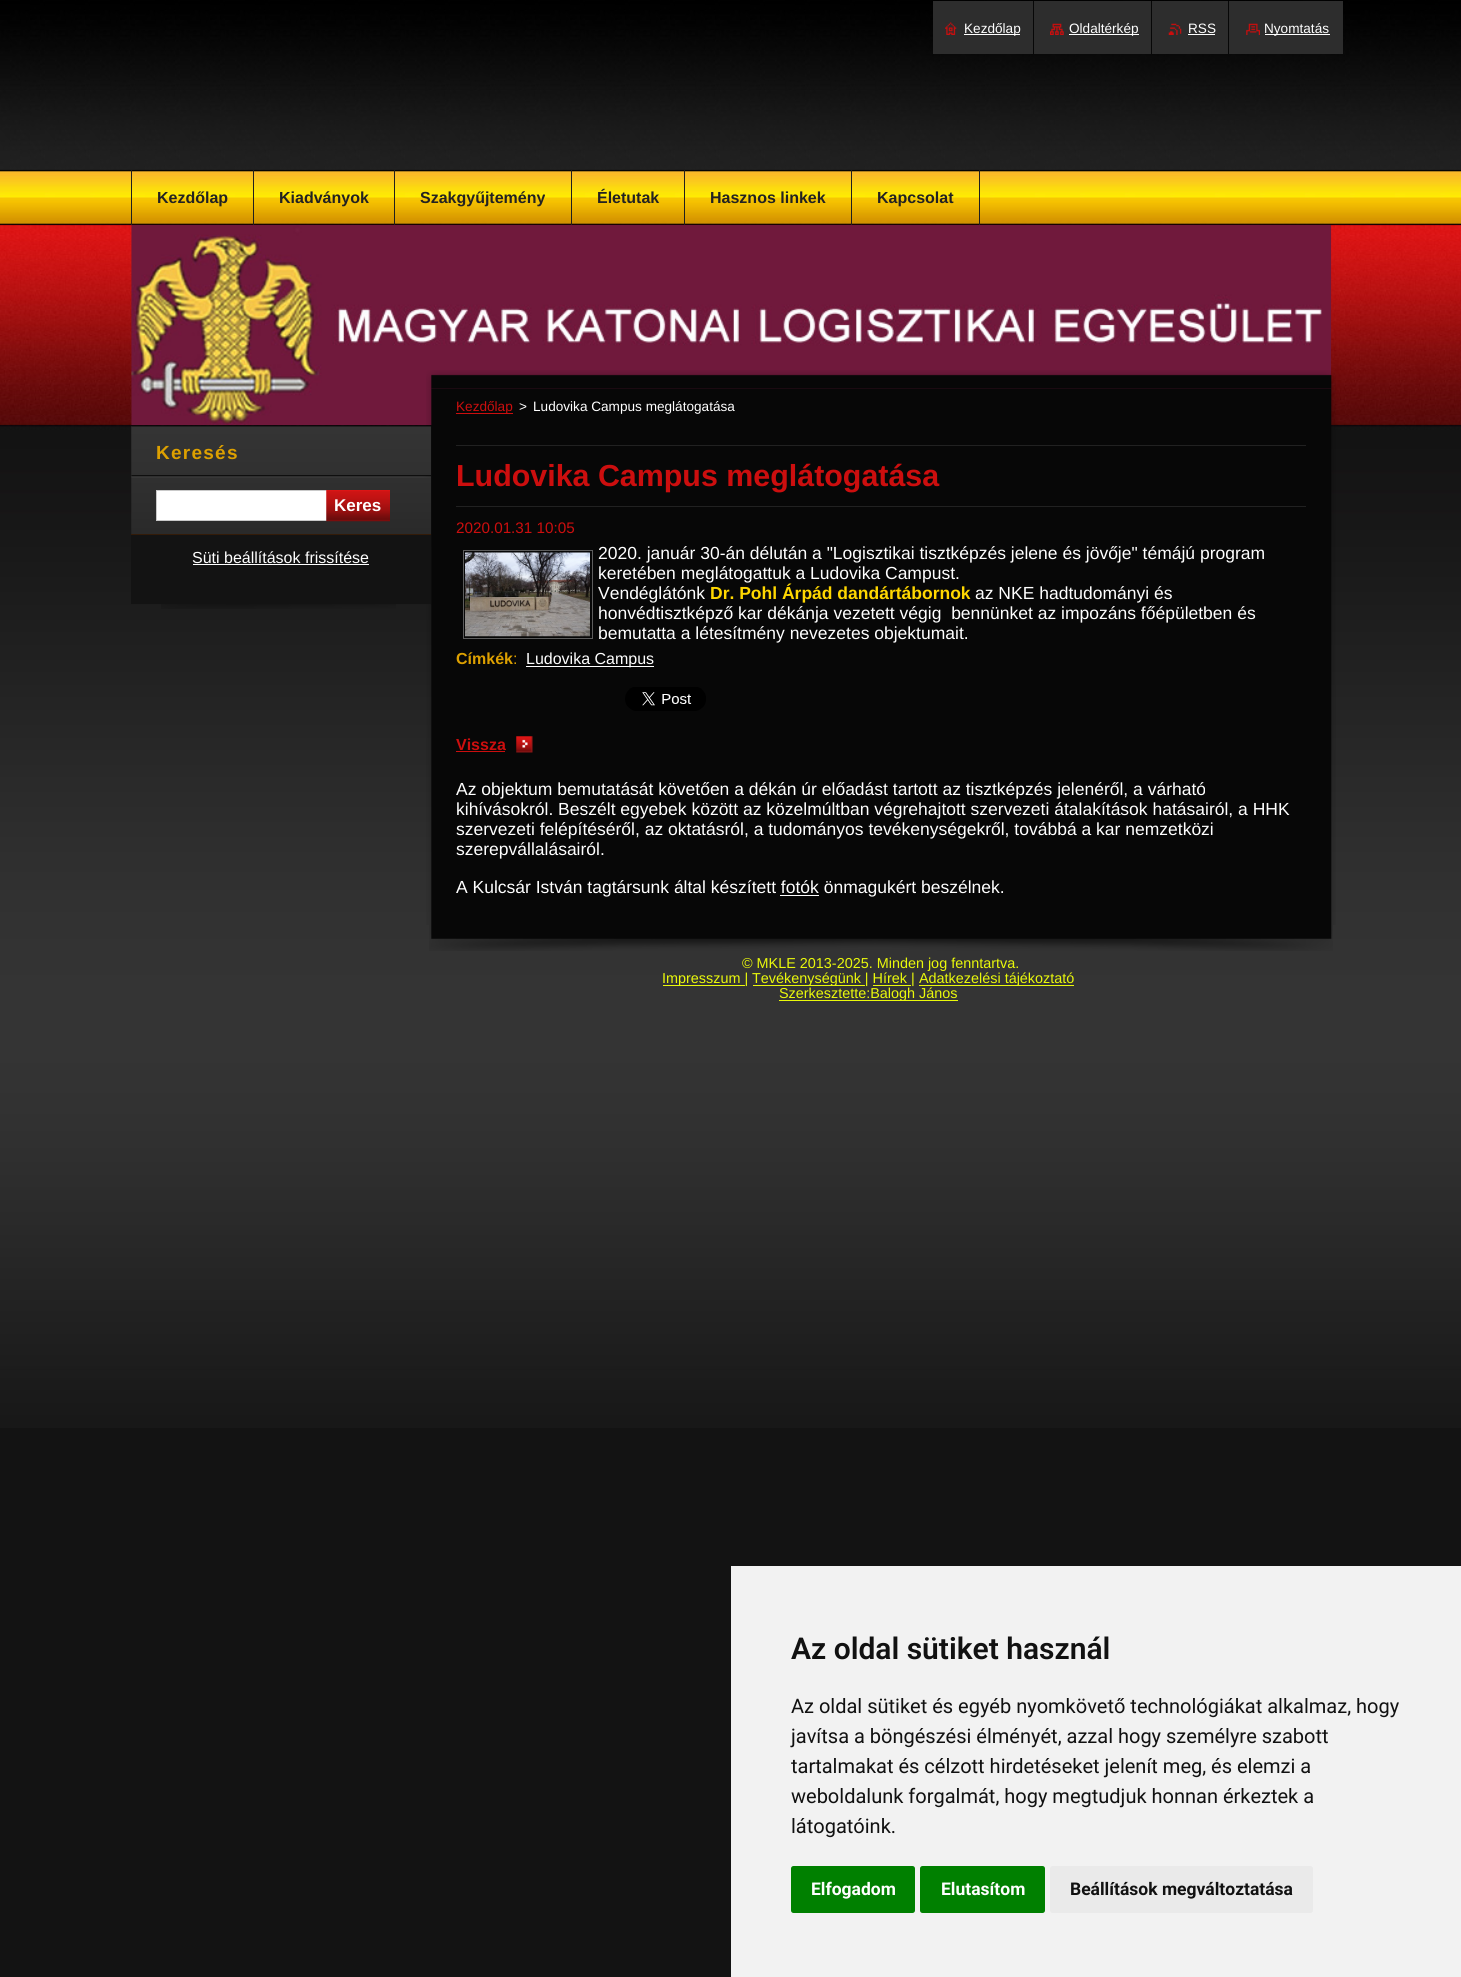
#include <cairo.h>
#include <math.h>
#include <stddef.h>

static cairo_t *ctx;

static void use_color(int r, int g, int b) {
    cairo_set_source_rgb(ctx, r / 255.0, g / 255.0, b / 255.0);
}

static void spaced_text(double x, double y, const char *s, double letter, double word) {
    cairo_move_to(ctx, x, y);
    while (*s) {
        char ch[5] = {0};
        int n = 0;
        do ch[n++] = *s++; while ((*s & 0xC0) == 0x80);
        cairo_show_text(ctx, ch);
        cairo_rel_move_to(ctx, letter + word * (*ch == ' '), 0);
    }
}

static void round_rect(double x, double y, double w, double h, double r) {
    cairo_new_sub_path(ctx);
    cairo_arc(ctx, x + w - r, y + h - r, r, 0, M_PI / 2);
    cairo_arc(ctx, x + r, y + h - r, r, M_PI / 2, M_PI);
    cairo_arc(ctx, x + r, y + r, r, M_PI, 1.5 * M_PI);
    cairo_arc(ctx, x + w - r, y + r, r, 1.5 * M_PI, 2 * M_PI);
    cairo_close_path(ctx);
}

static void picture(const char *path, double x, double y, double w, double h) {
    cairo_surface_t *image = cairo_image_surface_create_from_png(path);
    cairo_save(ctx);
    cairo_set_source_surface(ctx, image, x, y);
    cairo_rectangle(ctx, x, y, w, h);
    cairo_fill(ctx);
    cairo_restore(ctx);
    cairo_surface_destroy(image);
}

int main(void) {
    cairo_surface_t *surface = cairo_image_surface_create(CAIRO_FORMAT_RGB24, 1461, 1977);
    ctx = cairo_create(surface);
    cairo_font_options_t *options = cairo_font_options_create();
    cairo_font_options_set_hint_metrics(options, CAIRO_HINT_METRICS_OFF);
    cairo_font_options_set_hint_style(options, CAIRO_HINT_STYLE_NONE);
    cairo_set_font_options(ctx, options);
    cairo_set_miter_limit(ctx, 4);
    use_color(19, 19, 19);
    cairo_paint(ctx);
    picture("img1.png", 0, 0, 1461, 1428);
    use_color(45, 45, 45);
    cairo_rectangle(ctx, 933, 1, 410, 53);
    cairo_fill(ctx);
    picture("img2.png", 945, 22, 12, 13);
    use_color(255, 255, 255);
    cairo_rectangle(ctx, 964, 34, 56, 1);
    cairo_fill(ctx);
    cairo_select_font_face(ctx, "Liberation Sans", CAIRO_FONT_SLANT_NORMAL, CAIRO_FONT_WEIGHT_NORMAL);
    cairo_set_font_size(ctx, 13.6);
    cairo_move_to(ctx, 964, 33);
    cairo_show_text(ctx, "Kezdőlap");
    use_color(7, 7, 7);
    cairo_rectangle(ctx, 1033, 1, 1, 53);
    cairo_fill(ctx);
    picture("img3.png", 1050, 23, 14, 12);
    use_color(255, 255, 255);
    cairo_rectangle(ctx, 1069, 34, 70, 1);
    cairo_fill(ctx);
    cairo_move_to(ctx, 1069, 33);
    cairo_show_text(ctx, "Oldaltérkép");
    use_color(7, 7, 7);
    cairo_rectangle(ctx, 1151, 1, 1, 53);
    cairo_fill(ctx);
    picture("img4.png", 1168, 23, 14, 12);
    use_color(255, 255, 255);
    cairo_move_to(ctx, 1188, 33);
    cairo_show_text(ctx, "RSS");
    use_color(7, 7, 7);
    cairo_rectangle(ctx, 1228, 1, 1, 53);
    cairo_fill(ctx);
    use_color(255, 255, 255);
    cairo_rectangle(ctx, 1188, 34, 27, 1);
    cairo_fill(ctx);
    picture("img5.png", 1246, 23, 14, 12);
    cairo_rectangle(ctx, 1265, 34, 65, 1);
    cairo_fill(ctx);
    cairo_move_to(ctx, 1264, 33);
    cairo_show_text(ctx, "Nyomtatás");
    use_color(31, 31, 31);
    cairo_rectangle(ctx, 253, 170, 1, 55);
    cairo_fill(ctx);
    cairo_rectangle(ctx, 131, 170, 1, 55);
    cairo_fill(ctx);
    cairo_select_font_face(ctx, "Liberation Sans", CAIRO_FONT_SLANT_NORMAL, CAIRO_FONT_WEIGHT_BOLD);
    cairo_set_font_size(ctx, 16);
    use_color(34, 34, 34);
    cairo_move_to(ctx, 157, 203);
    cairo_show_text(ctx, "Kezdőlap");
    use_color(31, 31, 31);
    cairo_rectangle(ctx, 394, 170, 1, 55);
    cairo_fill(ctx);
    use_color(34, 34, 34);
    cairo_move_to(ctx, 279, 203);
    cairo_show_text(ctx, "Kiadványok");
    use_color(31, 31, 31);
    cairo_rectangle(ctx, 571, 170, 1, 55);
    cairo_fill(ctx);
    use_color(34, 34, 34);
    cairo_move_to(ctx, 420, 203);
    cairo_show_text(ctx, "Szakgyűjtemény");
    use_color(31, 31, 31);
    cairo_rectangle(ctx, 684, 170, 1, 55);
    cairo_fill(ctx);
    use_color(34, 34, 34);
    cairo_move_to(ctx, 597, 203);
    cairo_show_text(ctx, "Életutak");
    use_color(31, 31, 31);
    cairo_rectangle(ctx, 851, 170, 1, 55);
    cairo_fill(ctx);
    use_color(34, 34, 34);
    cairo_move_to(ctx, 710, 203);
    cairo_show_text(ctx, "Hasznos linkek");
    use_color(31, 31, 31);
    cairo_rectangle(ctx, 979, 170, 1, 55);
    cairo_fill(ctx);
    use_color(34, 34, 34);
    cairo_move_to(ctx, 877, 203);
    cairo_show_text(ctx, "Kapcsolat");
    picture("img6.png", 131, 225, 1201, 200);
    picture("img7.png", 426, 370, 910, 19);
    picture("img8.png", 429, 925, 904, 26);
    picture("img9.png", 426, 388, 910, 537);
    picture("img10.png", 161, 604, 235, 5);
    picture("img11.png", 131, 427, 300, 107);
    use_color(51, 27, 8);
    cairo_rectangle(ctx, 131, 534, 300, 1);
    cairo_fill(ctx);
    picture("img12.png", 131, 475, 300, 3);
    use_color(33, 33, 33);
    cairo_rectangle(ctx, 131, 426, 300, 1);
    cairo_fill(ctx);
    cairo_set_font_size(ctx, 19);
    use_color(221, 160, 0);
    spaced_text(156, 459, "Keresés", 1.25, 0);
    use_color(255, 255, 255);
    cairo_rectangle(ctx, 156.5, 490.5, 171, 30);
    cairo_fill_preserve(ctx);
    use_color(201, 201, 201);
    cairo_set_line_width(ctx, 1);
    cairo_stroke(ctx);
    picture("img13.png", 326, 490, 64, 32);
    cairo_set_font_size(ctx, 17);
    use_color(255, 255, 255);
    cairo_move_to(ctx, 334, 511);
    cairo_show_text(ctx, "Keres");
    use_color(19, 19, 19);
    cairo_rectangle(ctx, 131, 535, 300, 69);
    cairo_fill(ctx);
    cairo_select_font_face(ctx, "Liberation Sans", CAIRO_FONT_SLANT_NORMAL, CAIRO_FONT_WEIGHT_NORMAL);
    cairo_set_font_size(ctx, 16);
    use_color(255, 255, 255);
    cairo_move_to(ctx, 192, 563);
    cairo_show_text(ctx, "Süti beállítások frissítése");
    cairo_rectangle(ctx, 193, 564, 176, 1);
    cairo_fill(ctx);
    use_color(204, 14, 14);
    cairo_rectangle(ctx, 456, 413, 57, 1);
    cairo_fill(ctx);
    cairo_set_font_size(ctx, 13.6);
    cairo_move_to(ctx, 456, 411);
    cairo_show_text(ctx, "Kezdőlap");
    use_color(255, 255, 255);
    cairo_move_to(ctx, 519, 411);
    cairo_show_text(ctx, ">");
    cairo_move_to(ctx, 533, 411);
    cairo_show_text(ctx, "Ludovika Campus meglátogatása");
    use_color(33, 33, 33);
    cairo_rectangle(ctx, 456, 445, 850, 1);
    cairo_fill(ctx);
    cairo_rectangle(ctx, 456, 506, 850, 1);
    cairo_fill(ctx);
    cairo_select_font_face(ctx, "Liberation Sans", CAIRO_FONT_SLANT_NORMAL, CAIRO_FONT_WEIGHT_BOLD);
    cairo_set_font_size(ctx, 30.4);
    use_color(204, 14, 14);
    cairo_move_to(ctx, 456, 486);
    cairo_show_text(ctx, "Ludovika Campus meglátogatása");
    cairo_select_font_face(ctx, "Liberation Sans", CAIRO_FONT_SLANT_NORMAL, CAIRO_FONT_WEIGHT_NORMAL);
    cairo_set_font_size(ctx, 15.25);
    cairo_move_to(ctx, 456, 533);
    cairo_show_text(ctx, "2020.01.31 10:05");
    cairo_rectangle(ctx, 463.5, 550.5, 129, 88);
    use_color(92, 92, 92);
    cairo_stroke(ctx);
    picture("img14.png", 465, 552, 125, 85);
    cairo_set_font_size(ctx, 17.5);
    use_color(255, 255, 255);
    cairo_move_to(ctx, 598, 559);
    cairo_show_text(ctx, "2020. január 30-án délután a \"Logisztikai tisztképzés jelene és jövője\" témájú program");
    cairo_move_to(ctx, 598, 579);
    cairo_show_text(ctx, "keretében meglátogattuk a Ludovika Campust.");
    cairo_move_to(ctx, 598, 599);
    cairo_show_text(ctx, "Vendéglátónk");
    cairo_select_font_face(ctx, "Liberation Sans", CAIRO_FONT_SLANT_NORMAL, CAIRO_FONT_WEIGHT_BOLD);
    use_color(255, 215, 0);
    cairo_move_to(ctx, 710, 599);
    cairo_show_text(ctx, "Dr. Pohl Árpád dandártábornok");
    cairo_select_font_face(ctx, "Liberation Sans", CAIRO_FONT_SLANT_NORMAL, CAIRO_FONT_WEIGHT_NORMAL);
    use_color(255, 255, 255);
    cairo_move_to(ctx, 975, 599);
    cairo_show_text(ctx, "az NKE hadtudományi és");
    cairo_move_to(ctx, 598, 619);
    cairo_show_text(ctx, "honvédtisztképző kar dékánja vezetett végig  bennünket az impozáns főépületben és");
    cairo_move_to(ctx, 598, 639);
    cairo_show_text(ctx, "bemutatta a létesítmény nevezetes objektumait.");
    cairo_select_font_face(ctx, "Liberation Sans", CAIRO_FONT_SLANT_NORMAL, CAIRO_FONT_WEIGHT_BOLD);
    cairo_set_font_size(ctx, 16);
    use_color(221, 160, 0);
    cairo_move_to(ctx, 456, 664);
    cairo_show_text(ctx, "Címkék");
    cairo_select_font_face(ctx, "Liberation Sans", CAIRO_FONT_SLANT_NORMAL, CAIRO_FONT_WEIGHT_NORMAL);
    cairo_move_to(ctx, 513, 664);
    cairo_show_text(ctx, ":");
    use_color(255, 255, 255);
    cairo_rectangle(ctx, 526, 666, 128, 1);
    cairo_fill(ctx);
    cairo_move_to(ctx, 526, 664);
    cairo_show_text(ctx, "Ludovika Campus");
    picture("img15.png", 625, 687, 81, 24);
    picture("img16.png", 516, 736, 17, 17);
    cairo_select_font_face(ctx, "Liberation Sans", CAIRO_FONT_SLANT_NORMAL, CAIRO_FONT_WEIGHT_BOLD);
    use_color(204, 14, 14);
    cairo_move_to(ctx, 456, 750);
    cairo_show_text(ctx, "Vissza");
    cairo_rectangle(ctx, 456, 751, 49, 1);
    cairo_fill(ctx);
    cairo_select_font_face(ctx, "Liberation Sans", CAIRO_FONT_SLANT_NORMAL, CAIRO_FONT_WEIGHT_NORMAL);
    cairo_set_font_size(ctx, 17.5);
    use_color(255, 255, 255);
    cairo_move_to(ctx, 456, 795);
    cairo_show_text(ctx, "Az objektum bemutatását követően a dékán úr előadást tartott az tisztképzés jelenéről, a várható");
    cairo_move_to(ctx, 456, 815);
    cairo_show_text(ctx, "kihívásokról. Beszélt egyebek között az közelmúltban végrehajtott szervezeti átalakítások hatásairól, a HHK");
    cairo_move_to(ctx, 456, 835);
    cairo_show_text(ctx, "szervezeti felépítéséről, az oktatásról, a tudományos tevékenységekről, továbbá a kar nemzetközi");
    cairo_move_to(ctx, 456, 855);
    cairo_show_text(ctx, "szerepvállalásairól.");
    cairo_move_to(ctx, 456, 893);
    cairo_show_text(ctx, "A Kulcsár István tagtársunk által készített fotók önmagukért beszélnek.");
    cairo_rectangle(ctx, 780, 895, 39, 1);
    cairo_fill(ctx);
    cairo_set_font_size(ctx, 14.4);
    use_color(234, 249, 11);
    cairo_move_to(ctx, 742, 968);
    cairo_show_text(ctx, "© MKLE 2013-2025. Minden jog fenntartva.");
    cairo_rectangle(ctx, 663, 985, 82, 1);
    cairo_fill(ctx);
    cairo_move_to(ctx, 662, 983);
    cairo_show_text(ctx, "Impresszum |");
    cairo_rectangle(ctx, 753, 985, 112, 1);
    cairo_fill(ctx);
    cairo_move_to(ctx, 752, 983);
    cairo_show_text(ctx, "Tevékenységünk | Hírek |");
    cairo_rectangle(ctx, 919, 985, 155, 1);
    cairo_fill(ctx);
    cairo_move_to(ctx, 919, 983);
    cairo_show_text(ctx, "Adatkezelési tájékoztató");
    cairo_rectangle(ctx, 873, 985, 38, 1);
    cairo_fill(ctx);
    cairo_rectangle(ctx, 779, 1000, 179, 1);
    cairo_fill(ctx);
    cairo_move_to(ctx, 779, 998);
    cairo_show_text(ctx, "Szerkesztette:Balogh János");
    use_color(242, 242, 242);
    cairo_rectangle(ctx, 731, 1566, 730, 411);
    cairo_fill(ctx);
    cairo_select_font_face(ctx, "Roboto SemiBold", CAIRO_FONT_SLANT_NORMAL, CAIRO_FONT_WEIGHT_NORMAL);
    cairo_set_font_size(ctx, 30);
    use_color(17, 17, 17);
    cairo_move_to(ctx, 791, 1659);
    cairo_show_text(ctx, "Az oldal sütiket használ");
    cairo_select_font_face(ctx, "Roboto", CAIRO_FONT_SLANT_NORMAL, CAIRO_FONT_WEIGHT_NORMAL);
    cairo_set_font_size(ctx, 20);
    cairo_move_to(ctx, 791, 1713);
    cairo_show_text(ctx, "Az oldal sütiket és egyéb nyomkövető technológiákat alkalmaz, hogy");
    cairo_move_to(ctx, 791, 1743);
    cairo_show_text(ctx, "javítsa a böngészési élményét, azzal hogy személyre szabott");
    cairo_move_to(ctx, 791, 1773);
    cairo_show_text(ctx, "tartalmakat és célzott hirdetéseket jelenít meg, és elemzi a");
    cairo_move_to(ctx, 791, 1803);
    cairo_show_text(ctx, "weboldalunk forgalmát, hogy megtudjuk honnan érkeztek a");
    cairo_move_to(ctx, 791, 1833);
    cairo_show_text(ctx, "látogatóink.");
    use_color(0, 128, 0);
    round_rect(791, 1866, 124, 47, 2.5);
    cairo_fill(ctx);
    cairo_select_font_face(ctx, "Roboto", CAIRO_FONT_SLANT_NORMAL, CAIRO_FONT_WEIGHT_BOLD);
    cairo_set_font_size(ctx, 17.5);
    use_color(255, 255, 255);
    cairo_move_to(ctx, 811, 1895);
    cairo_show_text(ctx, "Elfogadom");
    use_color(0, 128, 0);
    round_rect(920, 1866, 125, 47, 2.5);
    cairo_fill(ctx);
    use_color(255, 255, 255);
    cairo_move_to(ctx, 941, 1895);
    cairo_show_text(ctx, "Elutasítom");
    use_color(234, 234, 234);
    round_rect(1050, 1866, 263, 47, 2.5);
    cairo_fill(ctx);
    use_color(17, 17, 17);
    cairo_move_to(ctx, 1070, 1895);
    cairo_show_text(ctx, "Beállítások megváltoztatása");
    cairo_surface_write_to_png(surface, "result.png");
    cairo_font_options_destroy(options);
    cairo_destroy(ctx);
    cairo_surface_destroy(surface);
    return 0;
}
